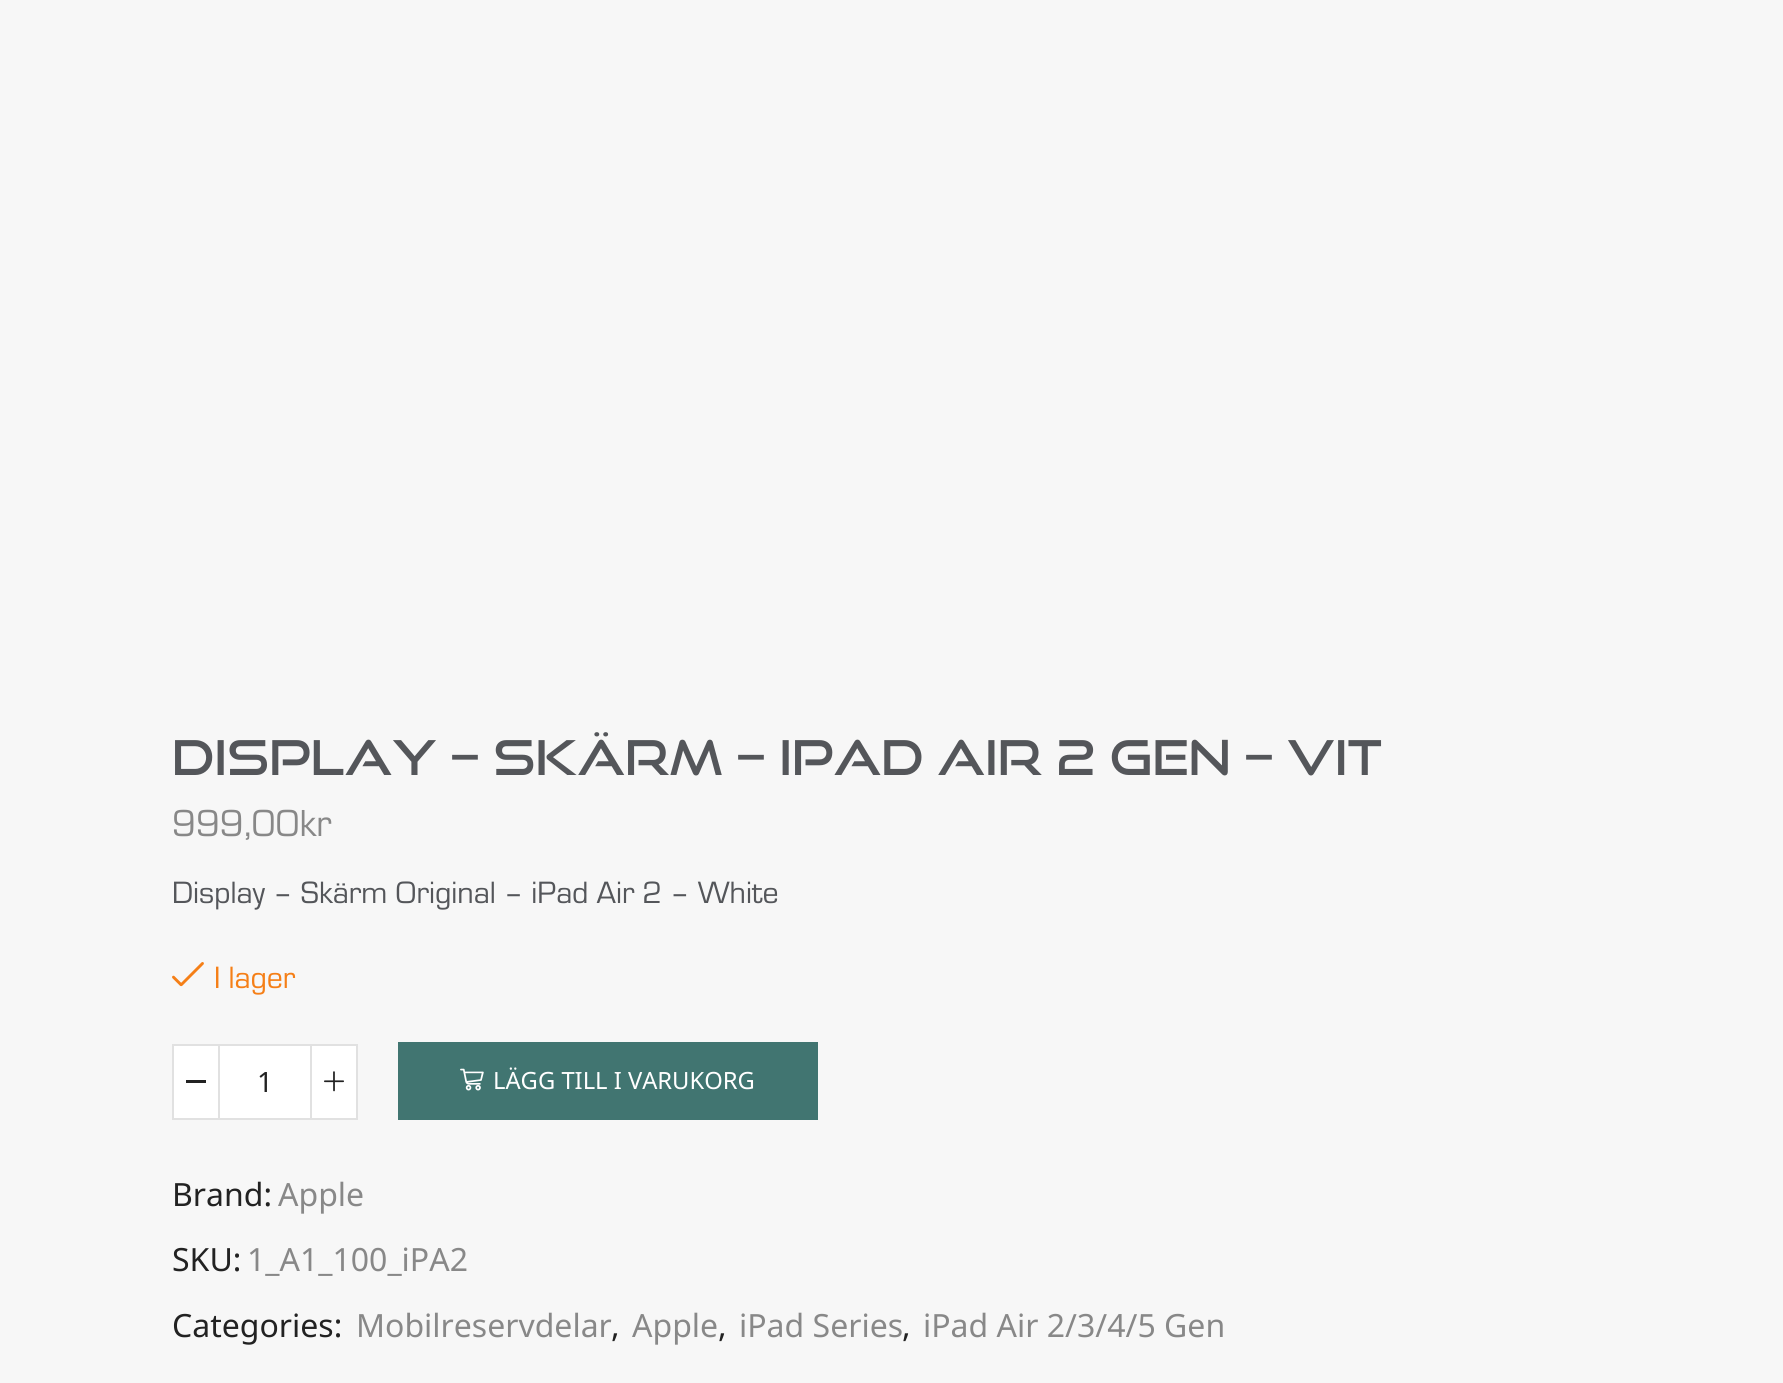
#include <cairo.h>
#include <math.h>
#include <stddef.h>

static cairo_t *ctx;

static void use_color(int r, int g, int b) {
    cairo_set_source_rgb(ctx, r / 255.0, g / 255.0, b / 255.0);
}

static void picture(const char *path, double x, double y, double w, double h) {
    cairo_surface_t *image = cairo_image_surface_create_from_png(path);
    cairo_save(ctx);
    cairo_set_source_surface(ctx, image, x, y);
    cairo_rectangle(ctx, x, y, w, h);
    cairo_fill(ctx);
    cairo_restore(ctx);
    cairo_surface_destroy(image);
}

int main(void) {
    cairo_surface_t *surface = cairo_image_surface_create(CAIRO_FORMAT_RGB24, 1783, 1383);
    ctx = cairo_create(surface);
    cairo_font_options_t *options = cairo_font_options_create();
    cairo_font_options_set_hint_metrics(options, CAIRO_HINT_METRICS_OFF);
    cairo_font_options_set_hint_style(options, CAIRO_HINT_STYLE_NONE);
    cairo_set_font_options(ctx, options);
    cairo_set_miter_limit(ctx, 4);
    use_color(247, 247, 247);
    cairo_paint(ctx);
    cairo_select_font_face(ctx, "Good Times", CAIRO_FONT_SLANT_NORMAL, CAIRO_FONT_WEIGHT_NORMAL);
    cairo_set_font_size(ctx, 48);
    use_color(84, 86, 90);
    cairo_move_to(ctx, 172, 775);
    cairo_show_text(ctx, "Display – Skärm – IPad Air 2 Gen – Vit");
    cairo_select_font_face(ctx, "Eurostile", CAIRO_FONT_SLANT_NORMAL, CAIRO_FONT_WEIGHT_NORMAL);
    cairo_set_font_size(ctx, 39);
    use_color(136, 136, 136);
    cairo_move_to(ctx, 172, 836);
    cairo_show_text(ctx, "999,00kr");
    cairo_set_font_size(ctx, 32);
    use_color(84, 86, 90);
    cairo_move_to(ctx, 172, 903);
    cairo_show_text(ctx, "Display – Skärm Original – iPad Air 2 – White");
    picture("img1.png", 172, 962, 32, 25);
    use_color(245, 127, 23);
    cairo_move_to(ctx, 214, 988);
    cairo_show_text(ctx, "I lager");
    use_color(255, 255, 255);
    cairo_rectangle(ctx, 173, 1045, 46, 74);
    cairo_fill_preserve(ctx);
    use_color(225, 225, 225);
    cairo_stroke(ctx);
    use_color(34, 34, 34);
    cairo_rectangle(ctx, 186, 1080, 20, 3);
    cairo_fill(ctx);
    use_color(255, 255, 255);
    cairo_rectangle(ctx, 220, 1046, 90, 72);
    cairo_fill(ctx);
    use_color(225, 225, 225);
    cairo_rectangle(ctx, 220, 1044, 90, 2);
    cairo_fill(ctx);
    cairo_rectangle(ctx, 220, 1118, 90, 2);
    cairo_fill(ctx);
    cairo_select_font_face(ctx, "Noto Sans", CAIRO_FONT_SLANT_NORMAL, CAIRO_FONT_WEIGHT_NORMAL);
    cairo_set_font_size(ctx, 28);
    use_color(34, 34, 34);
    cairo_move_to(ctx, 257, 1092);
    cairo_show_text(ctx, "1");
    use_color(255, 255, 255);
    cairo_rectangle(ctx, 311, 1045, 46, 74);
    cairo_fill_preserve(ctx);
    use_color(225, 225, 225);
    cairo_stroke(ctx);
    picture("img2.png", 324, 1071, 20, 21);
    use_color(65, 117, 113);
    cairo_rectangle(ctx, 398, 1042, 420, 78);
    cairo_fill(ctx);
    picture("img3.png", 460, 1068, 24, 23);
    cairo_set_font_size(ctx, 23.75);
    use_color(255, 255, 255);
    cairo_move_to(ctx, 493, 1089);
    cairo_show_text(ctx, "LÄGG TILL I VARUKORG");
    cairo_set_font_size(ctx, 32);
    use_color(34, 34, 34);
    cairo_move_to(ctx, 172, 1206);
    cairo_show_text(ctx, "Brand:");
    use_color(136, 136, 136);
    cairo_move_to(ctx, 278, 1206);
    cairo_show_text(ctx, "Apple");
    use_color(34, 34, 34);
    cairo_move_to(ctx, 172, 1271);
    cairo_show_text(ctx, "SKU:");
    use_color(136, 136, 136);
    cairo_move_to(ctx, 247, 1271);
    cairo_show_text(ctx, "1_A1_100_iPA2");
    use_color(34, 34, 34);
    cairo_move_to(ctx, 172, 1337);
    cairo_show_text(ctx, "Categories:");
    use_color(136, 136, 136);
    cairo_move_to(ctx, 356, 1337);
    cairo_show_text(ctx, "Mobilreservdelar");
    use_color(34, 34, 34);
    cairo_move_to(ctx, 611, 1337);
    cairo_show_text(ctx, ",");
    use_color(136, 136, 136);
    cairo_move_to(ctx, 632, 1337);
    cairo_show_text(ctx, "Apple");
    use_color(34, 34, 34);
    cairo_move_to(ctx, 718, 1337);
    cairo_show_text(ctx, ",");
    use_color(136, 136, 136);
    cairo_move_to(ctx, 739, 1337);
    cairo_show_text(ctx, "iPad Series");
    use_color(34, 34, 34);
    cairo_move_to(ctx, 902, 1337);
    cairo_show_text(ctx, ",");
    use_color(136, 136, 136);
    cairo_move_to(ctx, 923, 1337);
    cairo_show_text(ctx, "iPad Air 2/3/4/5 Gen");
    cairo_surface_write_to_png(surface, "result.png");
    cairo_font_options_destroy(options);
    cairo_destroy(ctx);
    cairo_surface_destroy(surface);
    return 0;
}
